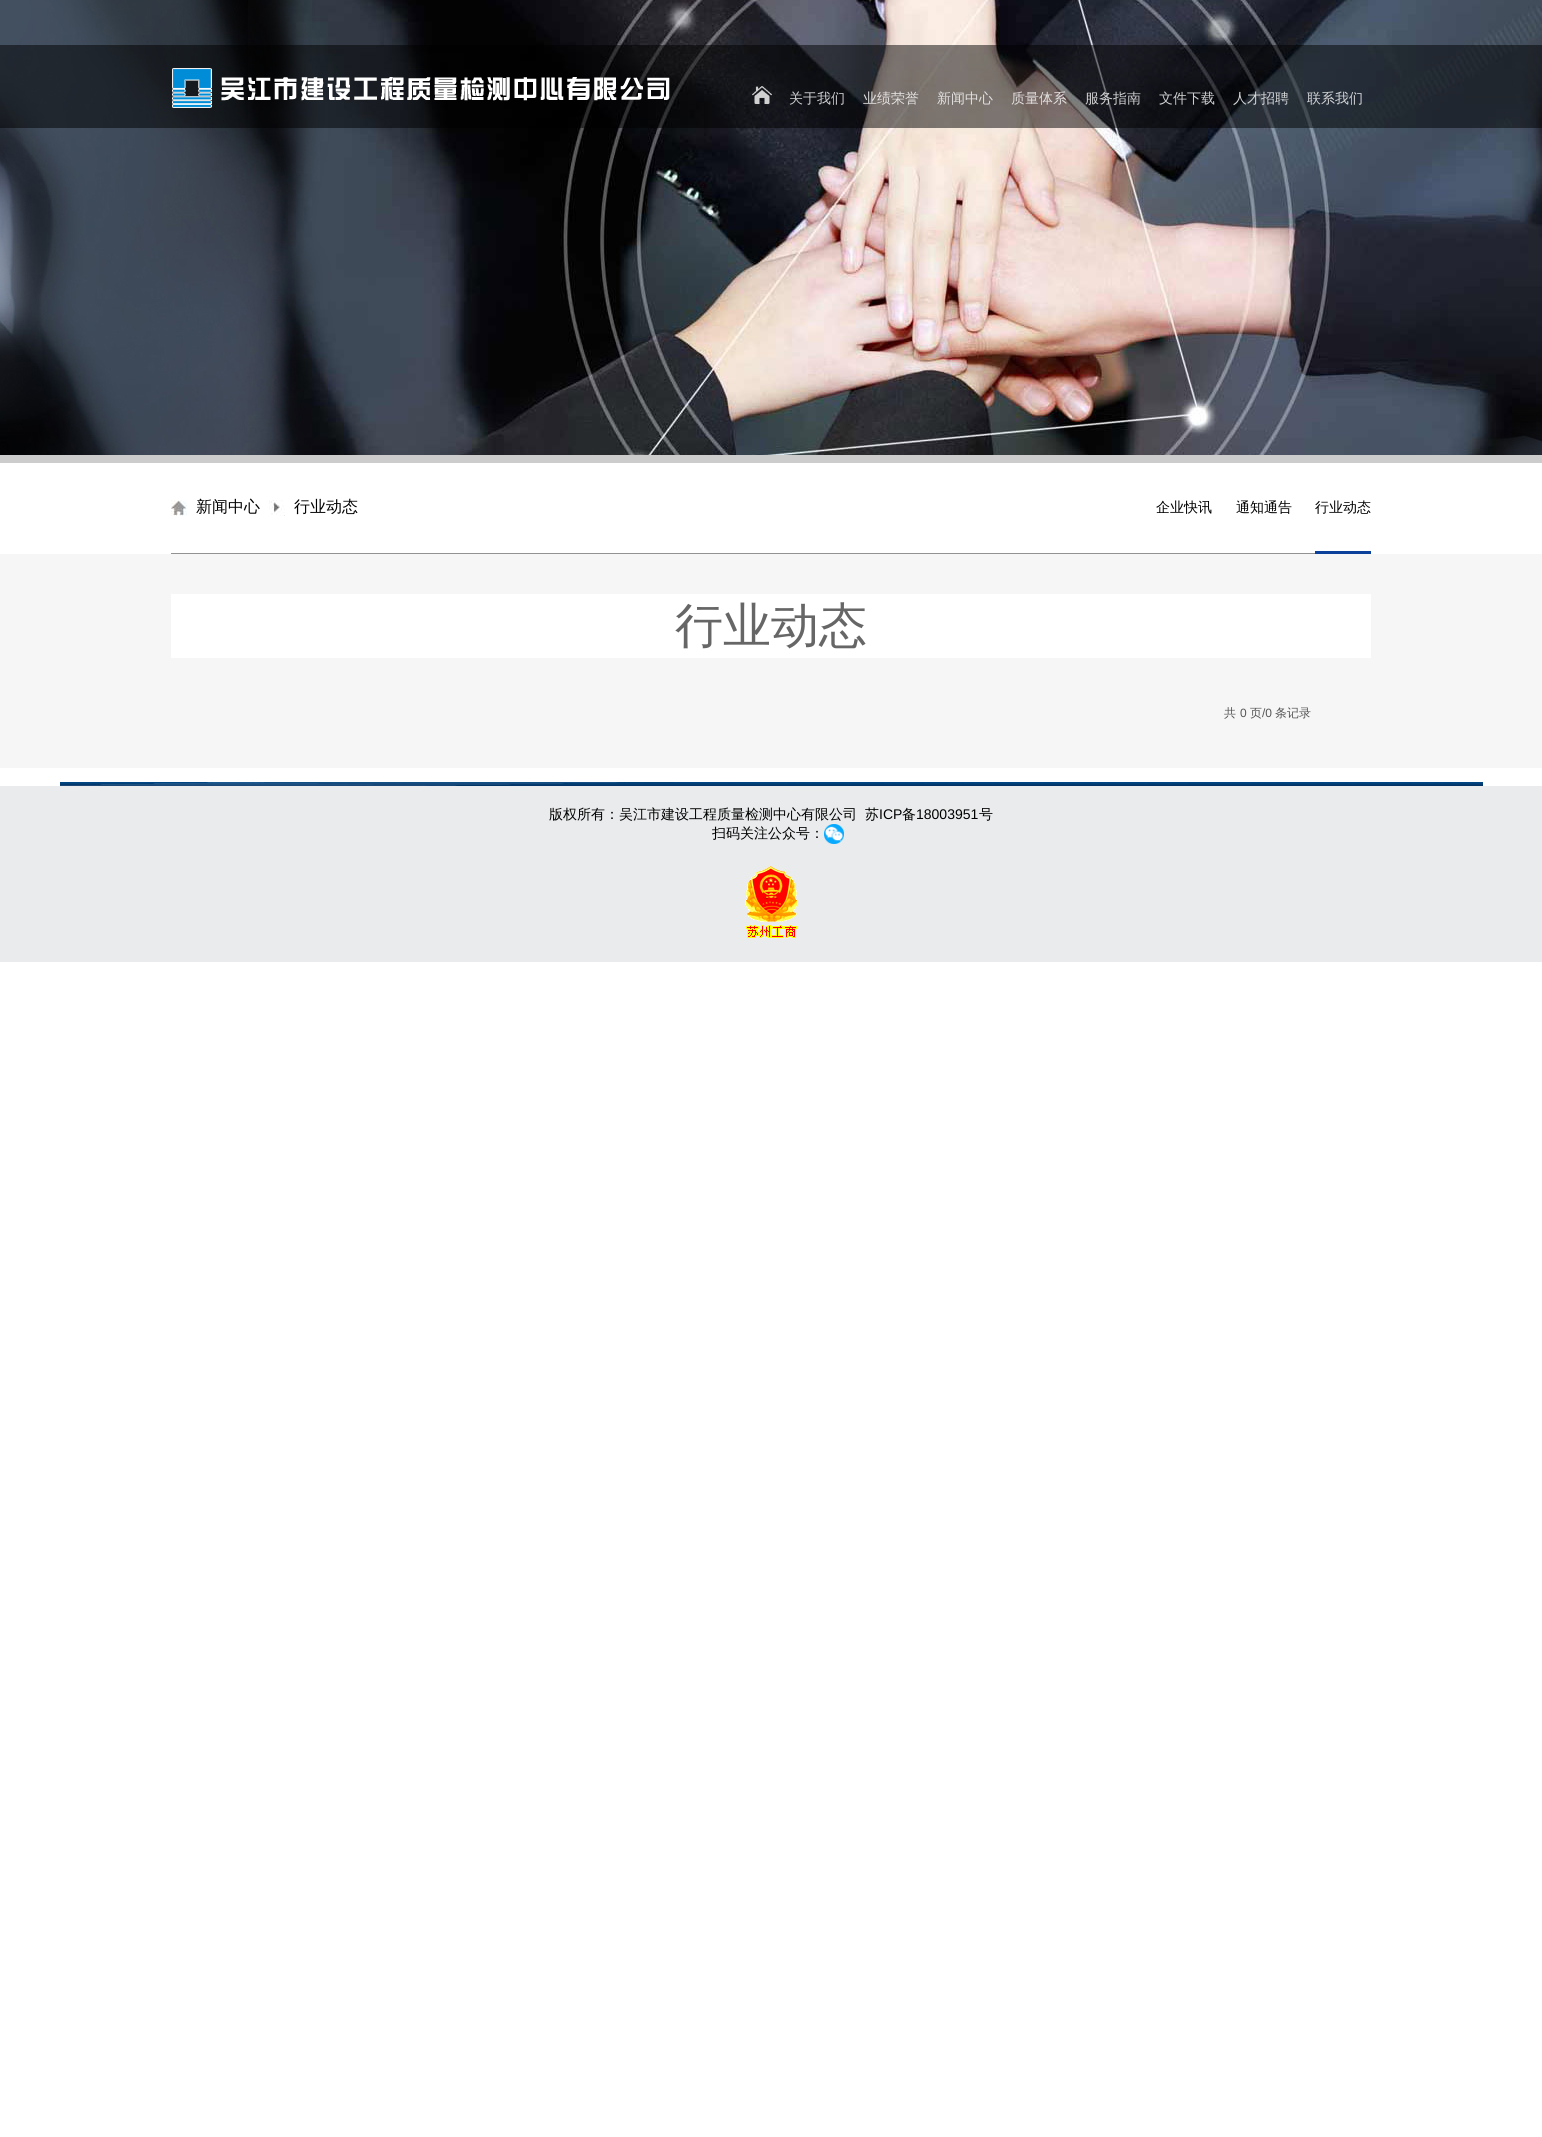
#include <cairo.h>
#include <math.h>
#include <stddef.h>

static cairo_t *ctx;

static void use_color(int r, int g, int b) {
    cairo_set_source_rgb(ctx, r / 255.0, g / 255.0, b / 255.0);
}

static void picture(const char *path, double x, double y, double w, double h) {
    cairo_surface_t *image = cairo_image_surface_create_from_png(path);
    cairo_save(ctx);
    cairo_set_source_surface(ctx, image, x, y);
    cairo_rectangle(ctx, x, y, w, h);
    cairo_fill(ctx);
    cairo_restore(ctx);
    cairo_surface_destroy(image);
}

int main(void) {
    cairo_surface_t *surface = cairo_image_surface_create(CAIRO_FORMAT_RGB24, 1542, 2137);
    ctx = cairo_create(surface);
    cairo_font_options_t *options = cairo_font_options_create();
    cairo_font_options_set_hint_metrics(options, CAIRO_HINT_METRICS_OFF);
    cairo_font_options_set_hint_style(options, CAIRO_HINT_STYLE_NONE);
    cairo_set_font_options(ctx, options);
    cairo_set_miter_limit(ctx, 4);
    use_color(255, 255, 255);
    cairo_paint(ctx);
    use_color(204, 204, 204);
    cairo_rectangle(ctx, 0, 455, 1542, 8);
    cairo_fill(ctx);
    picture("img1.png", 0, 0, 1542, 455);
    cairo_set_source_rgba(ctx, 0, 0, 0, 0.5);
    cairo_rectangle(ctx, 0, 45, 1542, 83);
    cairo_fill(ctx);
    picture("img2.png", 172, 68, 498, 40);
    picture("img3.png", 752, 86, 20, 18);
    cairo_select_font_face(ctx, "WenQuanYi Zen Hei Medium", CAIRO_FONT_SLANT_NORMAL, CAIRO_FONT_WEIGHT_NORMAL);
    cairo_set_font_size(ctx, 14);
    use_color(207, 207, 208);
    cairo_move_to(ctx, 789, 103);
    cairo_show_text(ctx, "关于我们");
    use_color(226, 224, 224);
    cairo_move_to(ctx, 863, 103);
    cairo_show_text(ctx, "业绩荣誉");
    cairo_move_to(ctx, 937, 103);
    cairo_show_text(ctx, "新闻中心");
    cairo_move_to(ctx, 1011, 103);
    cairo_show_text(ctx, "质量体系");
    use_color(207, 207, 208);
    cairo_move_to(ctx, 1085, 103);
    cairo_show_text(ctx, "服务指南");
    cairo_move_to(ctx, 1159, 103);
    cairo_show_text(ctx, "文件下载");
    use_color(211, 213, 214);
    cairo_move_to(ctx, 1233, 103);
    cairo_show_text(ctx, "人才招聘");
    cairo_move_to(ctx, 1307, 103);
    cairo_show_text(ctx, "联系我们");
    use_color(246, 246, 246);
    cairo_rectangle(ctx, 0, 554, 1542, 214);
    cairo_fill(ctx);
    use_color(146, 146, 146);
    cairo_rectangle(ctx, 171, 553, 1144, 1);
    cairo_fill(ctx);
    picture("img4.png", 171, 500, 16, 16);
    cairo_set_font_size(ctx, 16);
    use_color(0, 0, 0);
    cairo_move_to(ctx, 196, 512);
    cairo_show_text(ctx, "新闻中心");
    picture("img5.png", 269, 500, 16, 16);
    cairo_move_to(ctx, 294, 512);
    cairo_show_text(ctx, "行业动态");
    cairo_set_font_size(ctx, 14);
    cairo_move_to(ctx, 1156, 512);
    cairo_show_text(ctx, "企业快讯");
    cairo_move_to(ctx, 1236, 512);
    cairo_show_text(ctx, "通知通告");
    cairo_move_to(ctx, 1315, 512);
    cairo_show_text(ctx, "行业动态");
    use_color(11, 65, 155);
    cairo_rectangle(ctx, 1315, 551, 56, 3);
    cairo_fill(ctx);
    use_color(255, 255, 255);
    cairo_rectangle(ctx, 171, 594, 1200, 64);
    cairo_fill(ctx);
    cairo_set_font_size(ctx, 48);
    use_color(102, 102, 102);
    cairo_move_to(ctx, 675, 642);
    cairo_show_text(ctx, "行业动态");
    cairo_set_font_size(ctx, 12);
    use_color(85, 85, 85);
    cairo_move_to(ctx, 1224, 717);
    cairo_show_text(ctx, "共");
    cairo_select_font_face(ctx, "Liberation Sans", CAIRO_FONT_SLANT_NORMAL, CAIRO_FONT_WEIGHT_NORMAL);
    cairo_move_to(ctx, 1240, 717);
    cairo_show_text(ctx, "0");
    cairo_select_font_face(ctx, "WenQuanYi Zen Hei Medium", CAIRO_FONT_SLANT_NORMAL, CAIRO_FONT_WEIGHT_NORMAL);
    cairo_move_to(ctx, 1250, 717);
    cairo_show_text(ctx, "页");
    cairo_select_font_face(ctx, "Liberation Sans", CAIRO_FONT_SLANT_NORMAL, CAIRO_FONT_WEIGHT_NORMAL);
    cairo_move_to(ctx, 1262, 717);
    cairo_show_text(ctx, "/0");
    cairo_select_font_face(ctx, "WenQuanYi Zen Hei Medium", CAIRO_FONT_SLANT_NORMAL, CAIRO_FONT_WEIGHT_NORMAL);
    cairo_move_to(ctx, 1275, 717);
    cairo_show_text(ctx, "条记录");
    picture("img6.png", 60, 782, 1423, 4);
    use_color(234, 235, 236);
    cairo_rectangle(ctx, 0, 786, 1542, 176);
    cairo_fill(ctx);
    cairo_set_font_size(ctx, 14);
    use_color(0, 0, 0);
    cairo_move_to(ctx, 549, 819);
    cairo_show_text(ctx, "版权所有：吴江市建设工程质量检测中心有限公司");
    cairo_move_to(ctx, 865, 819);
    cairo_show_text(ctx, "苏");
    cairo_select_font_face(ctx, "Liberation Sans", CAIRO_FONT_SLANT_NORMAL, CAIRO_FONT_WEIGHT_NORMAL);
    cairo_move_to(ctx, 879, 819);
    cairo_show_text(ctx, "ICP");
    cairo_select_font_face(ctx, "WenQuanYi Zen Hei Medium", CAIRO_FONT_SLANT_NORMAL, CAIRO_FONT_WEIGHT_NORMAL);
    cairo_move_to(ctx, 902, 819);
    cairo_show_text(ctx, "备");
    cairo_select_font_face(ctx, "Liberation Sans", CAIRO_FONT_SLANT_NORMAL, CAIRO_FONT_WEIGHT_NORMAL);
    cairo_move_to(ctx, 916, 819);
    cairo_show_text(ctx, "18003951");
    cairo_select_font_face(ctx, "WenQuanYi Zen Hei Medium", CAIRO_FONT_SLANT_NORMAL, CAIRO_FONT_WEIGHT_NORMAL);
    cairo_move_to(ctx, 979, 819);
    cairo_show_text(ctx, "号");
    cairo_move_to(ctx, 712, 838);
    cairo_show_text(ctx, "扫码关注公众号：");
    picture("img7.png", 824, 824, 20, 20);
    picture("img8.png", 745, 866, 53, 72);
    cairo_surface_write_to_png(surface, "result.png");
    cairo_font_options_destroy(options);
    cairo_destroy(ctx);
    cairo_surface_destroy(surface);
    return 0;
}
